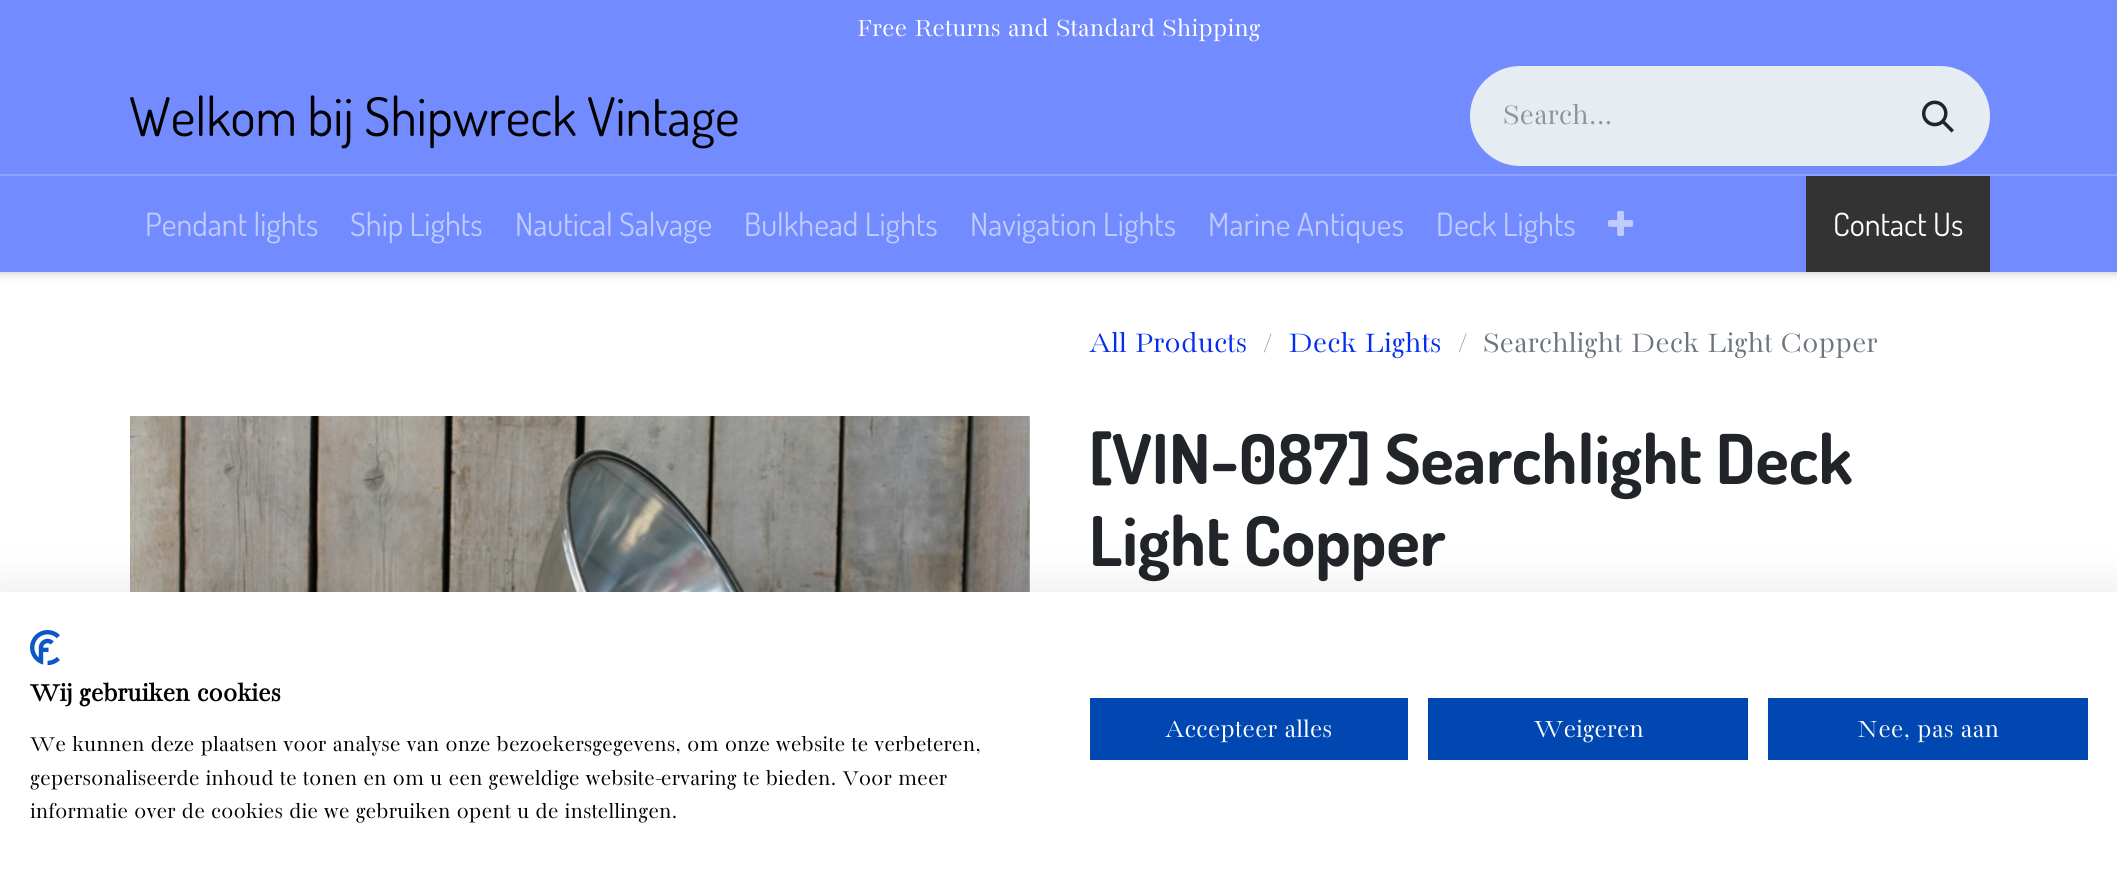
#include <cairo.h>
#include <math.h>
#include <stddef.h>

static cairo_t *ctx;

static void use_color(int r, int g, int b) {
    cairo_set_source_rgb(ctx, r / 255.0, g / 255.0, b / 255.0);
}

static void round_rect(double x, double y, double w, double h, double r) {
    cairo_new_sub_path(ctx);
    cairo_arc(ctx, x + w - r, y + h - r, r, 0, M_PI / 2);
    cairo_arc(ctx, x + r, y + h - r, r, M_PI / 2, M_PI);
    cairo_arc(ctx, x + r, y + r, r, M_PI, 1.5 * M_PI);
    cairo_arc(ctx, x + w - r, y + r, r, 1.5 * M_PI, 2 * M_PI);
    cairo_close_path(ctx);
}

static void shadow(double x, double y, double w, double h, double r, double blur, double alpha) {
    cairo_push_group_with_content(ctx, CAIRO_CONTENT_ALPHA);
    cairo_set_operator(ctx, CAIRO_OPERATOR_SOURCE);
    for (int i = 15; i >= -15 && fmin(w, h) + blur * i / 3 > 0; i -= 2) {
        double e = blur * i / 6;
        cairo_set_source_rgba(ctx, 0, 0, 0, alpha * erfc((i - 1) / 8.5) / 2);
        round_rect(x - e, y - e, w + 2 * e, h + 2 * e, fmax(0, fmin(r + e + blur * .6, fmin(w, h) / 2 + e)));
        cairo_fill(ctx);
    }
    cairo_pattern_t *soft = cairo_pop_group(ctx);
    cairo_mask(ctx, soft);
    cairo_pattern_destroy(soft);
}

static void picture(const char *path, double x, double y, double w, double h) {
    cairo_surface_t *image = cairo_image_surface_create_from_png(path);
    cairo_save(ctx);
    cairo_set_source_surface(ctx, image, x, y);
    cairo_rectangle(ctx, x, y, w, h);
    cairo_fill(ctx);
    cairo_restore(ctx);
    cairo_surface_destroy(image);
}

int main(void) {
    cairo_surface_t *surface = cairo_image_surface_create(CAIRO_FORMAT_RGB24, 2117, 884);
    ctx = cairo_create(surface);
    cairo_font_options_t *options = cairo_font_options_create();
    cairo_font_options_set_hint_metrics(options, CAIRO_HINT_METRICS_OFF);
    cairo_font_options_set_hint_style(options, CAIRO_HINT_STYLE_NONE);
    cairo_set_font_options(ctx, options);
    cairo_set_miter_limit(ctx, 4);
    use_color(255, 255, 255);
    cairo_paint(ctx);
    use_color(0, 0, 0);
    shadow(0, 0, 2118, 272, 0, 5, 0.25);
    use_color(114, 139, 254);
    cairo_rectangle(ctx, 0, 0, 2117, 272);
    cairo_fill(ctx);
    cairo_select_font_face(ctx, "Bacasime Antique", CAIRO_FONT_SLANT_NORMAL, CAIRO_FONT_WEIGHT_NORMAL);
    cairo_set_font_size(ctx, 28);
    use_color(255, 255, 255);
    cairo_move_to(ctx, 857, 36);
    cairo_show_text(ctx, "Free Returns and Standard Shipping");
    cairo_select_font_face(ctx, "Dosis", CAIRO_FONT_SLANT_NORMAL, CAIRO_FONT_WEIGHT_NORMAL);
    cairo_set_font_size(ctx, 53.25);
    use_color(0, 0, 0);
    cairo_move_to(ctx, 129, 136);
    cairo_show_text(ctx, "Welkom bij Shipwreck Vintage");
    use_color(229, 237, 242);
    cairo_new_path(ctx);
    cairo_move_to(ctx, 1520, 66);
    cairo_line_to(ctx, 1890, 66);
    cairo_line_to(ctx, 1890, 166);
    cairo_line_to(ctx, 1520, 166);
    cairo_curve_to(ctx, 1492.5, 166, 1470, 143.5, 1470, 116);
    cairo_curve_to(ctx, 1470, 88.5, 1492.5, 66, 1520, 66);
    cairo_close_path(ctx);
    cairo_fill(ctx);
    cairo_select_font_face(ctx, "Bacasime Antique", CAIRO_FONT_SLANT_NORMAL, CAIRO_FONT_WEIGHT_NORMAL);
    cairo_set_font_size(ctx, 32);
    use_color(144, 146, 148);
    cairo_move_to(ctx, 1503, 124);
    cairo_show_text(ctx, "Search...");
    use_color(229, 237, 242);
    cairo_new_path(ctx);
    cairo_move_to(ctx, 1888, 66);
    cairo_line_to(ctx, 1940, 66);
    cairo_curve_to(ctx, 1967.5, 66, 1990, 88.5, 1990, 116);
    cairo_curve_to(ctx, 1990, 143.5, 1967.5, 166, 1940, 166);
    cairo_line_to(ctx, 1888, 166);
    cairo_close_path(ctx);
    cairo_fill(ctx);
    picture("img1.png", 1922, 100, 32, 33);
    use_color(142, 162, 254);
    cairo_rectangle(ctx, 0, 174, 2117, 2);
    cairo_fill(ctx);
    cairo_select_font_face(ctx, "Dosis", CAIRO_FONT_SLANT_NORMAL, CAIRO_FONT_WEIGHT_NORMAL);
    use_color(192, 203, 255);
    cairo_move_to(ctx, 145, 236);
    cairo_show_text(ctx, "Pendant lights");
    cairo_move_to(ctx, 350, 236);
    cairo_show_text(ctx, "Ship Lights");
    cairo_move_to(ctx, 515, 236);
    cairo_show_text(ctx, "Nautical Salvage");
    cairo_move_to(ctx, 744, 236);
    cairo_show_text(ctx, "Bulkhead Lights");
    cairo_move_to(ctx, 970, 236);
    cairo_show_text(ctx, "Navigation Lights");
    cairo_move_to(ctx, 1208, 236);
    cairo_show_text(ctx, "Marine Antiques");
    cairo_move_to(ctx, 1436, 236);
    cairo_show_text(ctx, "Deck Lights");
    picture("img2.png", 1608, 210, 26, 26);
    use_color(51, 51, 51);
    cairo_rectangle(ctx, 1806, 176, 184, 96);
    cairo_fill(ctx);
    use_color(255, 255, 255);
    cairo_move_to(ctx, 1833, 236);
    cairo_show_text(ctx, "Contact Us");
    cairo_select_font_face(ctx, "Bacasime Antique", CAIRO_FONT_SLANT_NORMAL, CAIRO_FONT_WEIGHT_NORMAL);
    use_color(2, 44, 239);
    cairo_move_to(ctx, 1089, 352);
    cairo_show_text(ctx, "All Products");
    use_color(108, 117, 125);
    cairo_move_to(ctx, 1263, 352);
    cairo_show_text(ctx, "/");
    use_color(2, 44, 239);
    cairo_move_to(ctx, 1288, 352);
    cairo_show_text(ctx, "Deck Lights");
    use_color(108, 117, 125);
    cairo_move_to(ctx, 1458, 352);
    cairo_show_text(ctx, "/");
    cairo_move_to(ctx, 1483, 352);
    cairo_show_text(ctx, "Searchlight Deck Light Copper");
    picture("img3.png", 130, 416, 900, 176);
    cairo_select_font_face(ctx, "Dosis", CAIRO_FONT_SLANT_NORMAL, CAIRO_FONT_WEIGHT_BOLD);
    cairo_set_font_size(ctx, 68.6);
    use_color(33, 37, 41);
    cairo_move_to(ctx, 1089, 484);
    cairo_show_text(ctx, "[VIN-087] Searchlight Deck");
    cairo_move_to(ctx, 1089, 566);
    cairo_show_text(ctx, "Light Copper");
    use_color(0, 0, 0);
    shadow(0, 592, 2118, 292, 0, 24, 0.1);
    use_color(255, 255, 255);
    cairo_rectangle(ctx, 0, 592, 2117, 292);
    cairo_fill(ctx);
    picture("img4.png", 30, 630, 30, 36);
    cairo_select_font_face(ctx, "Bacasime Antique", CAIRO_FONT_SLANT_NORMAL, CAIRO_FONT_WEIGHT_BOLD);
    cairo_set_font_size(ctx, 28);
    use_color(0, 0, 0);
    cairo_move_to(ctx, 30, 701);
    cairo_show_text(ctx, "Wij gebruiken cookies");
    cairo_select_font_face(ctx, "Bacasime Antique", CAIRO_FONT_SLANT_NORMAL, CAIRO_FONT_WEIGHT_NORMAL);
    cairo_set_font_size(ctx, 24);
    cairo_move_to(ctx, 30, 751);
    cairo_show_text(ctx, "We kunnen deze plaatsen voor analyse van onze bezoekersgegevens, om onze website te verbeteren,");
    cairo_move_to(ctx, 30, 785);
    cairo_show_text(ctx, "gepersonaliseerde inhoud te tonen en om u een geweldige website-ervaring te bieden. Voor meer");
    cairo_move_to(ctx, 30, 818);
    cairo_show_text(ctx, "informatie over de cookies die we gebruiken opent u de instellingen.");
    use_color(0, 71, 178);
    cairo_rectangle(ctx, 1090, 698, 318, 62);
    cairo_fill(ctx);
    cairo_set_font_size(ctx, 28);
    use_color(255, 255, 255);
    cairo_move_to(ctx, 1165, 737);
    cairo_show_text(ctx, "Accepteer alles");
    use_color(0, 71, 178);
    cairo_rectangle(ctx, 1428, 698, 320, 62);
    cairo_fill(ctx);
    use_color(255, 255, 255);
    cairo_move_to(ctx, 1534, 737);
    cairo_show_text(ctx, "Weigeren");
    use_color(0, 71, 178);
    cairo_rectangle(ctx, 1768, 698, 320, 62);
    cairo_fill(ctx);
    use_color(255, 255, 255);
    cairo_move_to(ctx, 1857, 737);
    cairo_show_text(ctx, "Nee, pas aan");
    cairo_surface_write_to_png(surface, "result.png");
    cairo_font_options_destroy(options);
    cairo_destroy(ctx);
    cairo_surface_destroy(surface);
    return 0;
}
